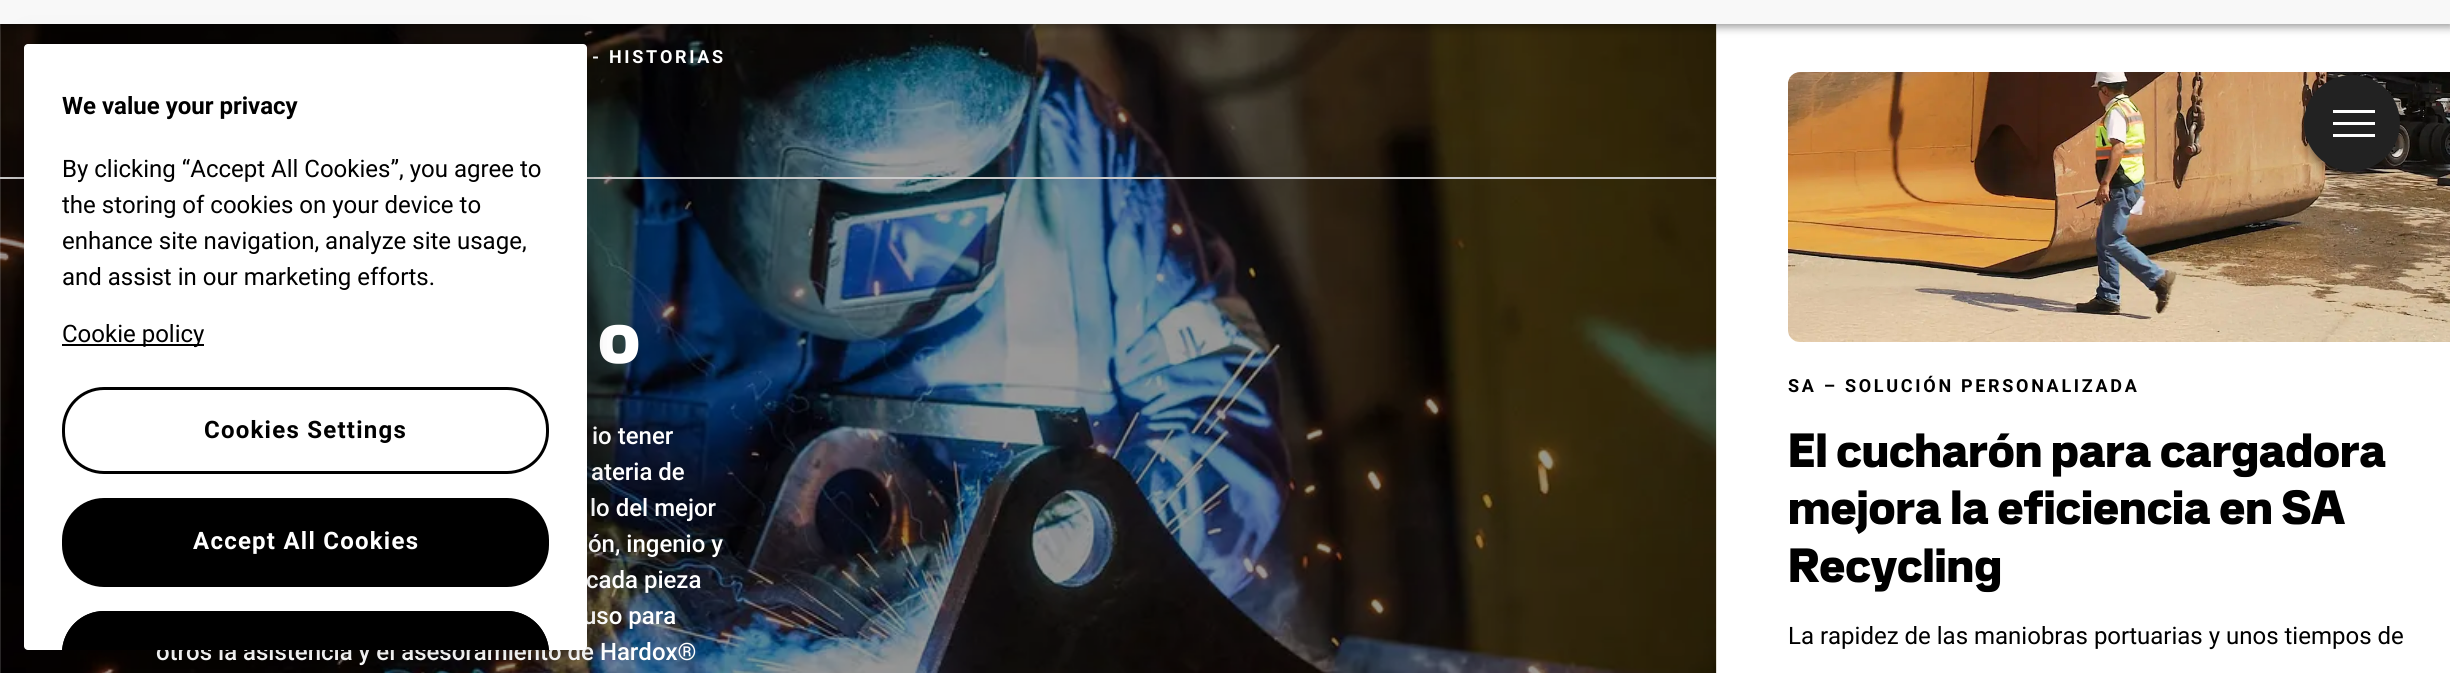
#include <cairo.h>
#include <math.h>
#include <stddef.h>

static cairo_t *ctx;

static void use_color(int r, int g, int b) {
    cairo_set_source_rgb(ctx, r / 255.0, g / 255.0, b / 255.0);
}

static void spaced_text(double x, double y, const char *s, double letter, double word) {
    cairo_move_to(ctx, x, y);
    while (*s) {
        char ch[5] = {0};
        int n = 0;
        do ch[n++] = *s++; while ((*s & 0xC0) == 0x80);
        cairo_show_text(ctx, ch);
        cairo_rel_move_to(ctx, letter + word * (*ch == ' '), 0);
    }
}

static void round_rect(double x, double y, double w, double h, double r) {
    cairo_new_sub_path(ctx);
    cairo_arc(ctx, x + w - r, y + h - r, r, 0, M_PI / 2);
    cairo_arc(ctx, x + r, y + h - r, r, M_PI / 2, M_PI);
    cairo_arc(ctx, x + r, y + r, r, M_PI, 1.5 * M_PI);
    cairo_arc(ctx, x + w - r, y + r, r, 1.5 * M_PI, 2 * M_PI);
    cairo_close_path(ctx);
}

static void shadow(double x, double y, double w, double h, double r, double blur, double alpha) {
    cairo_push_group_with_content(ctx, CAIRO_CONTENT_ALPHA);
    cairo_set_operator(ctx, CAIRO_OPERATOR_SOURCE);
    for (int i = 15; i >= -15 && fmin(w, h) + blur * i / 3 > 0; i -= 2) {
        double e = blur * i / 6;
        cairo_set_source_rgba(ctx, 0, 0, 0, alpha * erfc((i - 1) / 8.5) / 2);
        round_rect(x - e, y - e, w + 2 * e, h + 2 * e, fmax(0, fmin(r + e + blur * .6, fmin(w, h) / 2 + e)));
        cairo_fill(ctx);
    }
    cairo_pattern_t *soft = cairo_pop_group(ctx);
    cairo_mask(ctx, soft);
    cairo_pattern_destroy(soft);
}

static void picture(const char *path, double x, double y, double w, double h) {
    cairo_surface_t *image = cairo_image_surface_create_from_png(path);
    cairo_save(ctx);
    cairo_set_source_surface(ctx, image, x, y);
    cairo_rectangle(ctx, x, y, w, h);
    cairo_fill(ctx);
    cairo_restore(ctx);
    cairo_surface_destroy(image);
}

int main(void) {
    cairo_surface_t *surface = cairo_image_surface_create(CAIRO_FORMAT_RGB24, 2450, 673);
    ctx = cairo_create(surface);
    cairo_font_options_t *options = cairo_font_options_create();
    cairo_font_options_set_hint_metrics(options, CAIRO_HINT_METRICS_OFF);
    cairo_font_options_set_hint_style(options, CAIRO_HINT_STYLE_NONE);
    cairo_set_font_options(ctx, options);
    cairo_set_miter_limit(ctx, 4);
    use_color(255, 255, 255);
    cairo_paint(ctx);
    picture("img1.png", 0, 24, 1717, 649);
    use_color(0, 0, 0);
    shadow(0, 3, 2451, 24, 0, 4.5, 0.4);
    use_color(248, 248, 248);
    cairo_rectangle(ctx, 0, 0, 2450, 24);
    cairo_fill(ctx);
    cairo_select_font_face(ctx, "Roboto", CAIRO_FONT_SLANT_NORMAL, CAIRO_FONT_WEIGHT_BOLD);
    cairo_set_font_size(ctx, 18);
    use_color(255, 255, 255);
    spaced_text(592, 63, "- HISTORIAS", 2.7, 0);
    cairo_select_font_face(ctx, "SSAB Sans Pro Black", CAIRO_FONT_SLANT_NORMAL, CAIRO_FONT_WEIGHT_NORMAL);
    cairo_set_font_size(ctx, 75);
    cairo_move_to(ctx, 598, 363);
    cairo_show_text(ctx, "o");
    cairo_select_font_face(ctx, "Roboto Medium", CAIRO_FONT_SLANT_NORMAL, CAIRO_FONT_WEIGHT_NORMAL);
    cairo_set_font_size(ctx, 24);
    cairo_move_to(ctx, 592, 444);
    cairo_show_text(ctx, "io tener");
    cairo_move_to(ctx, 591, 480);
    cairo_show_text(ctx, "ateria de");
    cairo_move_to(ctx, 590, 516);
    cairo_show_text(ctx, "lo del mejor");
    cairo_move_to(ctx, 588, 552);
    cairo_show_text(ctx, "ón, ingenio y");
    cairo_move_to(ctx, 586, 588);
    cairo_show_text(ctx, "cada pieza");
    cairo_move_to(ctx, 583, 624);
    cairo_show_text(ctx, "uso para");
    cairo_move_to(ctx, 156, 660);
    cairo_show_text(ctx, "otros la asistencia y el asesoramiento de Hardox®");
    use_color(200, 200, 200);
    cairo_rectangle(ctx, 0, 177, 1716, 2);
    cairo_fill(ctx);
    picture("img2.png", 1788, 72, 662, 270);
    cairo_select_font_face(ctx, "Roboto", CAIRO_FONT_SLANT_NORMAL, CAIRO_FONT_WEIGHT_BOLD);
    cairo_set_font_size(ctx, 18);
    use_color(0, 0, 0);
    spaced_text(1788, 392, "SA – SOLUCIÓN PERSONALIZADA", 2.7, 0);
    cairo_select_font_face(ctx, "SSAB Sans Pro Black", CAIRO_FONT_SLANT_NORMAL, CAIRO_FONT_WEIGHT_NORMAL);
    cairo_set_font_size(ctx, 48);
    cairo_move_to(ctx, 1788, 467);
    cairo_show_text(ctx, "El cucharón para cargadora");
    cairo_move_to(ctx, 1788, 524);
    cairo_show_text(ctx, "mejora la eficiencia en SA");
    cairo_move_to(ctx, 1788, 582);
    cairo_show_text(ctx, "Recycling");
    cairo_select_font_face(ctx, "Roboto", CAIRO_FONT_SLANT_NORMAL, CAIRO_FONT_WEIGHT_NORMAL);
    cairo_set_font_size(ctx, 24);
    cairo_move_to(ctx, 1788, 644);
    cairo_show_text(ctx, "La rapidez de las maniobras portuarias y unos tiempos de");
    use_color(0, 0, 0);
    shadow(24, 44, 563, 606, 4, 13.5, 0.2);
    use_color(255, 255, 255);
    round_rect(24, 44, 563, 606, 4);
    cairo_fill(ctx);
    cairo_select_font_face(ctx, "Roboto", CAIRO_FONT_SLANT_NORMAL, CAIRO_FONT_WEIGHT_BOLD);
    use_color(0, 0, 0);
    cairo_move_to(ctx, 62, 114);
    cairo_show_text(ctx, "We value your privacy");
    cairo_select_font_face(ctx, "Roboto", CAIRO_FONT_SLANT_NORMAL, CAIRO_FONT_WEIGHT_NORMAL);
    cairo_move_to(ctx, 62, 177);
    cairo_show_text(ctx, "By clicking “Accept All Cookies”, you agree to");
    cairo_move_to(ctx, 62, 213);
    cairo_show_text(ctx, "the storing of cookies on your device to");
    cairo_move_to(ctx, 62, 249);
    cairo_show_text(ctx, "enhance site navigation, analyze site usage,");
    cairo_move_to(ctx, 62, 285);
    cairo_show_text(ctx, "and assist in our marketing efforts.");
    cairo_rectangle(ctx, 62, 344, 142, 2);
    cairo_fill(ctx);
    cairo_move_to(ctx, 62, 342);
    cairo_show_text(ctx, "Cookie policy");
    round_rect(63.5, 388.5, 484, 84, 40.5);
    cairo_set_line_width(ctx, 3);
    cairo_stroke(ctx);
    cairo_select_font_face(ctx, "Roboto", CAIRO_FONT_SLANT_NORMAL, CAIRO_FONT_WEIGHT_BOLD);
    spaced_text(204, 438, "Cookies Settings", 1.25, 0);
    round_rect(63.5, 499.5, 484, 86, 40.5);
    cairo_fill_preserve(ctx);
    cairo_stroke(ctx);
    use_color(255, 255, 255);
    spaced_text(193, 549, "Accept All Cookies", 1.25, 0);
    use_color(0, 0, 0);
    cairo_new_path(ctx);
    cairo_move_to(ctx, 104, 611);
    cairo_line_to(ctx, 507, 611);
    cairo_curve_to(ctx, 530, 611, 549, 630, 549, 653);
    cairo_line_to(ctx, 549, 650);
    cairo_line_to(ctx, 62, 650);
    cairo_line_to(ctx, 62, 653);
    cairo_curve_to(ctx, 62, 630, 81, 611, 104, 611);
    cairo_close_path(ctx);
    cairo_fill(ctx);
    cairo_new_path(ctx);
    cairo_move_to(ctx, 104, 611);
    cairo_curve_to(ctx, 82, 611, 64, 628, 62, 650);
    cairo_line_to(ctx, 65, 650);
    cairo_curve_to(ctx, 67, 630, 83, 614, 104, 614);
    cairo_line_to(ctx, 507, 614);
    cairo_curve_to(ctx, 528, 614, 544, 630, 546, 650);
    cairo_line_to(ctx, 549, 650);
    cairo_curve_to(ctx, 547, 628, 529, 611, 507, 611);
    cairo_close_path(ctx);
    cairo_fill(ctx);
    use_color(0, 0, 0);
    shadow(2304, 81, 96, 96, 48, 4, 0.35);
    use_color(34, 34, 34);
    cairo_arc(ctx, 2352, 123, 48, 0, 2 * M_PI);
    cairo_fill(ctx);
    use_color(255, 255, 255);
    cairo_rectangle(ctx, 2333, 110, 42, 3);
    cairo_fill(ctx);
    cairo_rectangle(ctx, 2333, 122, 42, 3);
    cairo_fill(ctx);
    cairo_rectangle(ctx, 2333, 134, 42, 3);
    cairo_fill(ctx);
    cairo_surface_write_to_png(surface, "result.png");
    cairo_font_options_destroy(options);
    cairo_destroy(ctx);
    cairo_surface_destroy(surface);
    return 0;
}
